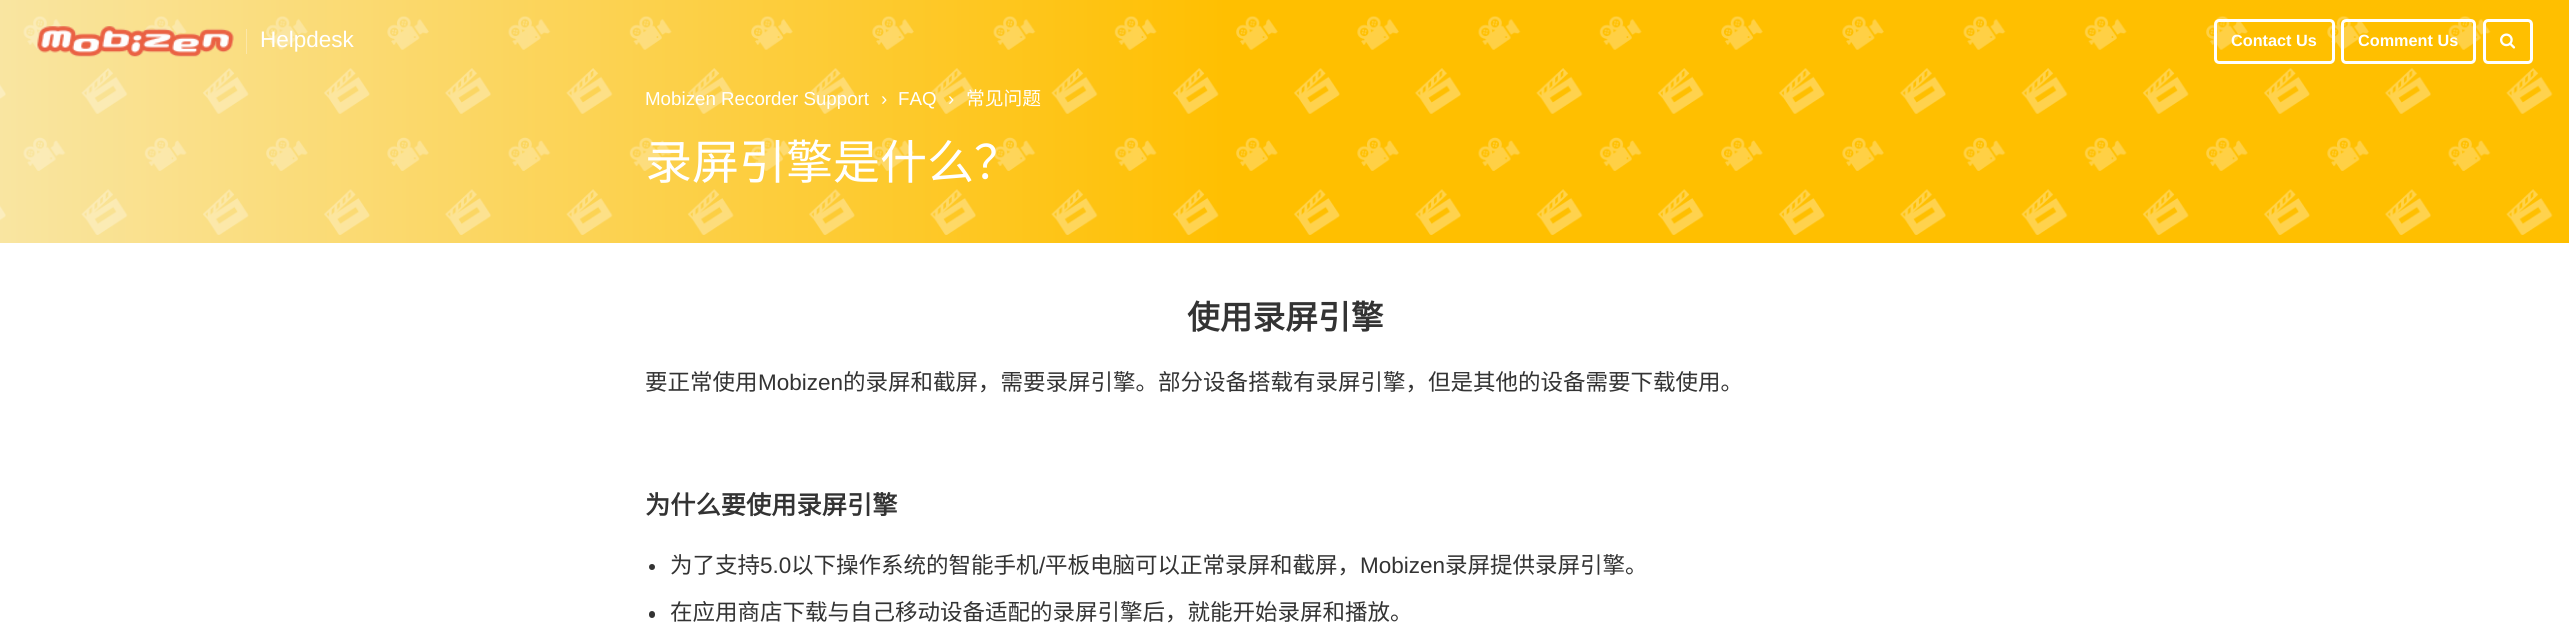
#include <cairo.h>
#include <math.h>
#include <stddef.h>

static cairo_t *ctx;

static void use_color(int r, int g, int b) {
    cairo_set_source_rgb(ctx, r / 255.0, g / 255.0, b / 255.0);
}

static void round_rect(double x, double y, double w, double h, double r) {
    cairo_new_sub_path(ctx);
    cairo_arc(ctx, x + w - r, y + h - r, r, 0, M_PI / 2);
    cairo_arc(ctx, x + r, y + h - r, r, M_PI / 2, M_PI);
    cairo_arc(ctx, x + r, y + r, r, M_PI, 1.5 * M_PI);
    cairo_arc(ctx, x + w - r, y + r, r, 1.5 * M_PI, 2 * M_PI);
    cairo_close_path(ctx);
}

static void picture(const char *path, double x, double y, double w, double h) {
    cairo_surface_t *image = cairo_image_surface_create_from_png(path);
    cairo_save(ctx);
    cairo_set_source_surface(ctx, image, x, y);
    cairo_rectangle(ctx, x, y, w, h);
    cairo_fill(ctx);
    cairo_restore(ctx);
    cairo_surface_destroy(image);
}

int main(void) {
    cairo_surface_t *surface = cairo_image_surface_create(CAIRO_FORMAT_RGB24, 2569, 631);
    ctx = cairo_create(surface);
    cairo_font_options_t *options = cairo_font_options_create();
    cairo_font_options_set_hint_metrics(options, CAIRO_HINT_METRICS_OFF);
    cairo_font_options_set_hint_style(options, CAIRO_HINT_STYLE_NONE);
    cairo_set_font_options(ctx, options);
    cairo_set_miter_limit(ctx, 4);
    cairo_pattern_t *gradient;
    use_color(255, 255, 255);
    cairo_paint(ctx);
    gradient = cairo_pattern_create_linear(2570, 121, 0, 121);
    cairo_pattern_add_color_stop_rgba(gradient, 0.52, 1, 0.749, 0, 1);
    cairo_pattern_add_color_stop_rgba(gradient, 1, 0.976, 0.898, 0.631, 1);
    cairo_set_source(ctx, gradient);
    cairo_pattern_destroy(gradient);
    cairo_rectangle(ctx, 0, 0, 2569, 243);
    cairo_fill(ctx);
    picture("img3.png", 0, 16, 2553, 219);
    picture("img1.png", 37, 26, 197, 31);
    use_color(252, 231, 167);
    cairo_rectangle(ctx, 246, 29, 1, 25);
    cairo_fill(ctx);
    cairo_select_font_face(ctx, "Liberation Sans", CAIRO_FONT_SLANT_NORMAL, CAIRO_FONT_WEIGHT_NORMAL);
    cairo_set_font_size(ctx, 22.5);
    use_color(255, 255, 255);
    cairo_move_to(ctx, 260, 47);
    cairo_show_text(ctx, "Helpdesk");
    round_rect(2215.5, 20.5, 118, 42, 3.5);
    cairo_set_line_width(ctx, 3);
    cairo_stroke(ctx);
    cairo_select_font_face(ctx, "Liberation Sans", CAIRO_FONT_SLANT_NORMAL, CAIRO_FONT_WEIGHT_BOLD);
    cairo_set_font_size(ctx, 16.25);
    cairo_move_to(ctx, 2231, 46);
    cairo_show_text(ctx, "Contact Us");
    round_rect(2342.5, 20.5, 132, 42, 3.5);
    cairo_stroke(ctx);
    cairo_move_to(ctx, 2358, 46);
    cairo_show_text(ctx, "Comment Us");
    round_rect(2484.5, 20.5, 47, 42, 3.5);
    cairo_stroke(ctx);
    picture("img2.png", 2500, 33, 16, 16);
    cairo_select_font_face(ctx, "Liberation Sans", CAIRO_FONT_SLANT_NORMAL, CAIRO_FONT_WEIGHT_NORMAL);
    cairo_set_font_size(ctx, 18.75);
    cairo_move_to(ctx, 645, 105);
    cairo_show_text(ctx, "Mobizen Recorder Support");
    cairo_move_to(ctx, 881, 105);
    cairo_show_text(ctx, "›");
    cairo_move_to(ctx, 898, 105);
    cairo_show_text(ctx, "FAQ");
    cairo_move_to(ctx, 948, 105);
    cairo_show_text(ctx, "›");
    cairo_select_font_face(ctx, "Noto Sans CJK SC", CAIRO_FONT_SLANT_NORMAL, CAIRO_FONT_WEIGHT_NORMAL);
    cairo_move_to(ctx, 966, 105);
    cairo_show_text(ctx, "常见问题");
    cairo_set_font_size(ctx, 47);
    cairo_move_to(ctx, 645, 179);
    cairo_show_text(ctx, "录屏引擎是什么？");
    cairo_select_font_face(ctx, "Noto Sans CJK SC", CAIRO_FONT_SLANT_NORMAL, CAIRO_FONT_WEIGHT_BOLD);
    cairo_set_font_size(ctx, 32.75);
    use_color(51, 51, 51);
    cairo_move_to(ctx, 1187, 329);
    cairo_show_text(ctx, "使用录屏引擎");
    cairo_select_font_face(ctx, "Noto Sans CJK SC", CAIRO_FONT_SLANT_NORMAL, CAIRO_FONT_WEIGHT_NORMAL);
    cairo_set_font_size(ctx, 22.5);
    cairo_move_to(ctx, 645, 390);
    cairo_show_text(ctx, "要正常使用");
    cairo_select_font_face(ctx, "Liberation Sans", CAIRO_FONT_SLANT_NORMAL, CAIRO_FONT_WEIGHT_NORMAL);
    cairo_move_to(ctx, 758, 390);
    cairo_show_text(ctx, "Mobizen");
    cairo_select_font_face(ctx, "Noto Sans CJK SC", CAIRO_FONT_SLANT_NORMAL, CAIRO_FONT_WEIGHT_NORMAL);
    cairo_move_to(ctx, 843, 390);
    cairo_show_text(ctx, "的录屏和截屏，需要录屏引擎。部分设备搭载有录屏引擎，但是其他的设备需要下载使用。");
    cairo_select_font_face(ctx, "Noto Sans CJK SC", CAIRO_FONT_SLANT_NORMAL, CAIRO_FONT_WEIGHT_BOLD);
    cairo_set_font_size(ctx, 25.25);
    cairo_move_to(ctx, 645, 514);
    cairo_show_text(ctx, "为什么要使用录屏引擎");
    cairo_new_path(ctx);
    cairo_arc(ctx, 652, 567, 3, 0, 2 * M_PI);
    cairo_fill(ctx);
    cairo_select_font_face(ctx, "Noto Sans CJK SC", CAIRO_FONT_SLANT_NORMAL, CAIRO_FONT_WEIGHT_NORMAL);
    cairo_set_font_size(ctx, 22.5);
    cairo_move_to(ctx, 670, 573);
    cairo_show_text(ctx, "为了支持");
    cairo_select_font_face(ctx, "Liberation Sans", CAIRO_FONT_SLANT_NORMAL, CAIRO_FONT_WEIGHT_NORMAL);
    cairo_move_to(ctx, 760, 573);
    cairo_show_text(ctx, "5.0");
    cairo_select_font_face(ctx, "Noto Sans CJK SC", CAIRO_FONT_SLANT_NORMAL, CAIRO_FONT_WEIGHT_NORMAL);
    cairo_move_to(ctx, 791, 573);
    cairo_show_text(ctx, "以下操作系统的智能手机");
    cairo_select_font_face(ctx, "Liberation Sans", CAIRO_FONT_SLANT_NORMAL, CAIRO_FONT_WEIGHT_NORMAL);
    cairo_move_to(ctx, 1039, 573);
    cairo_show_text(ctx, "/");
    cairo_select_font_face(ctx, "Noto Sans CJK SC", CAIRO_FONT_SLANT_NORMAL, CAIRO_FONT_WEIGHT_NORMAL);
    cairo_move_to(ctx, 1045, 573);
    cairo_show_text(ctx, "平板电脑可以正常录屏和截屏，");
    cairo_select_font_face(ctx, "Liberation Sans", CAIRO_FONT_SLANT_NORMAL, CAIRO_FONT_WEIGHT_NORMAL);
    cairo_move_to(ctx, 1360, 573);
    cairo_show_text(ctx, "Mobizen");
    cairo_select_font_face(ctx, "Noto Sans CJK SC", CAIRO_FONT_SLANT_NORMAL, CAIRO_FONT_WEIGHT_NORMAL);
    cairo_move_to(ctx, 1445, 573);
    cairo_show_text(ctx, "录屏提供录屏引擎。");
    round_rect(649, 611, 6, 7, 3);
    cairo_fill(ctx);
    cairo_move_to(ctx, 670, 620);
    cairo_show_text(ctx, "在应用商店下载与自己移动设备适配的录屏引擎后，就能开始录屏和播放。");
    cairo_surface_write_to_png(surface, "result.png");
    cairo_font_options_destroy(options);
    cairo_destroy(ctx);
    cairo_surface_destroy(surface);
    return 0;
}
